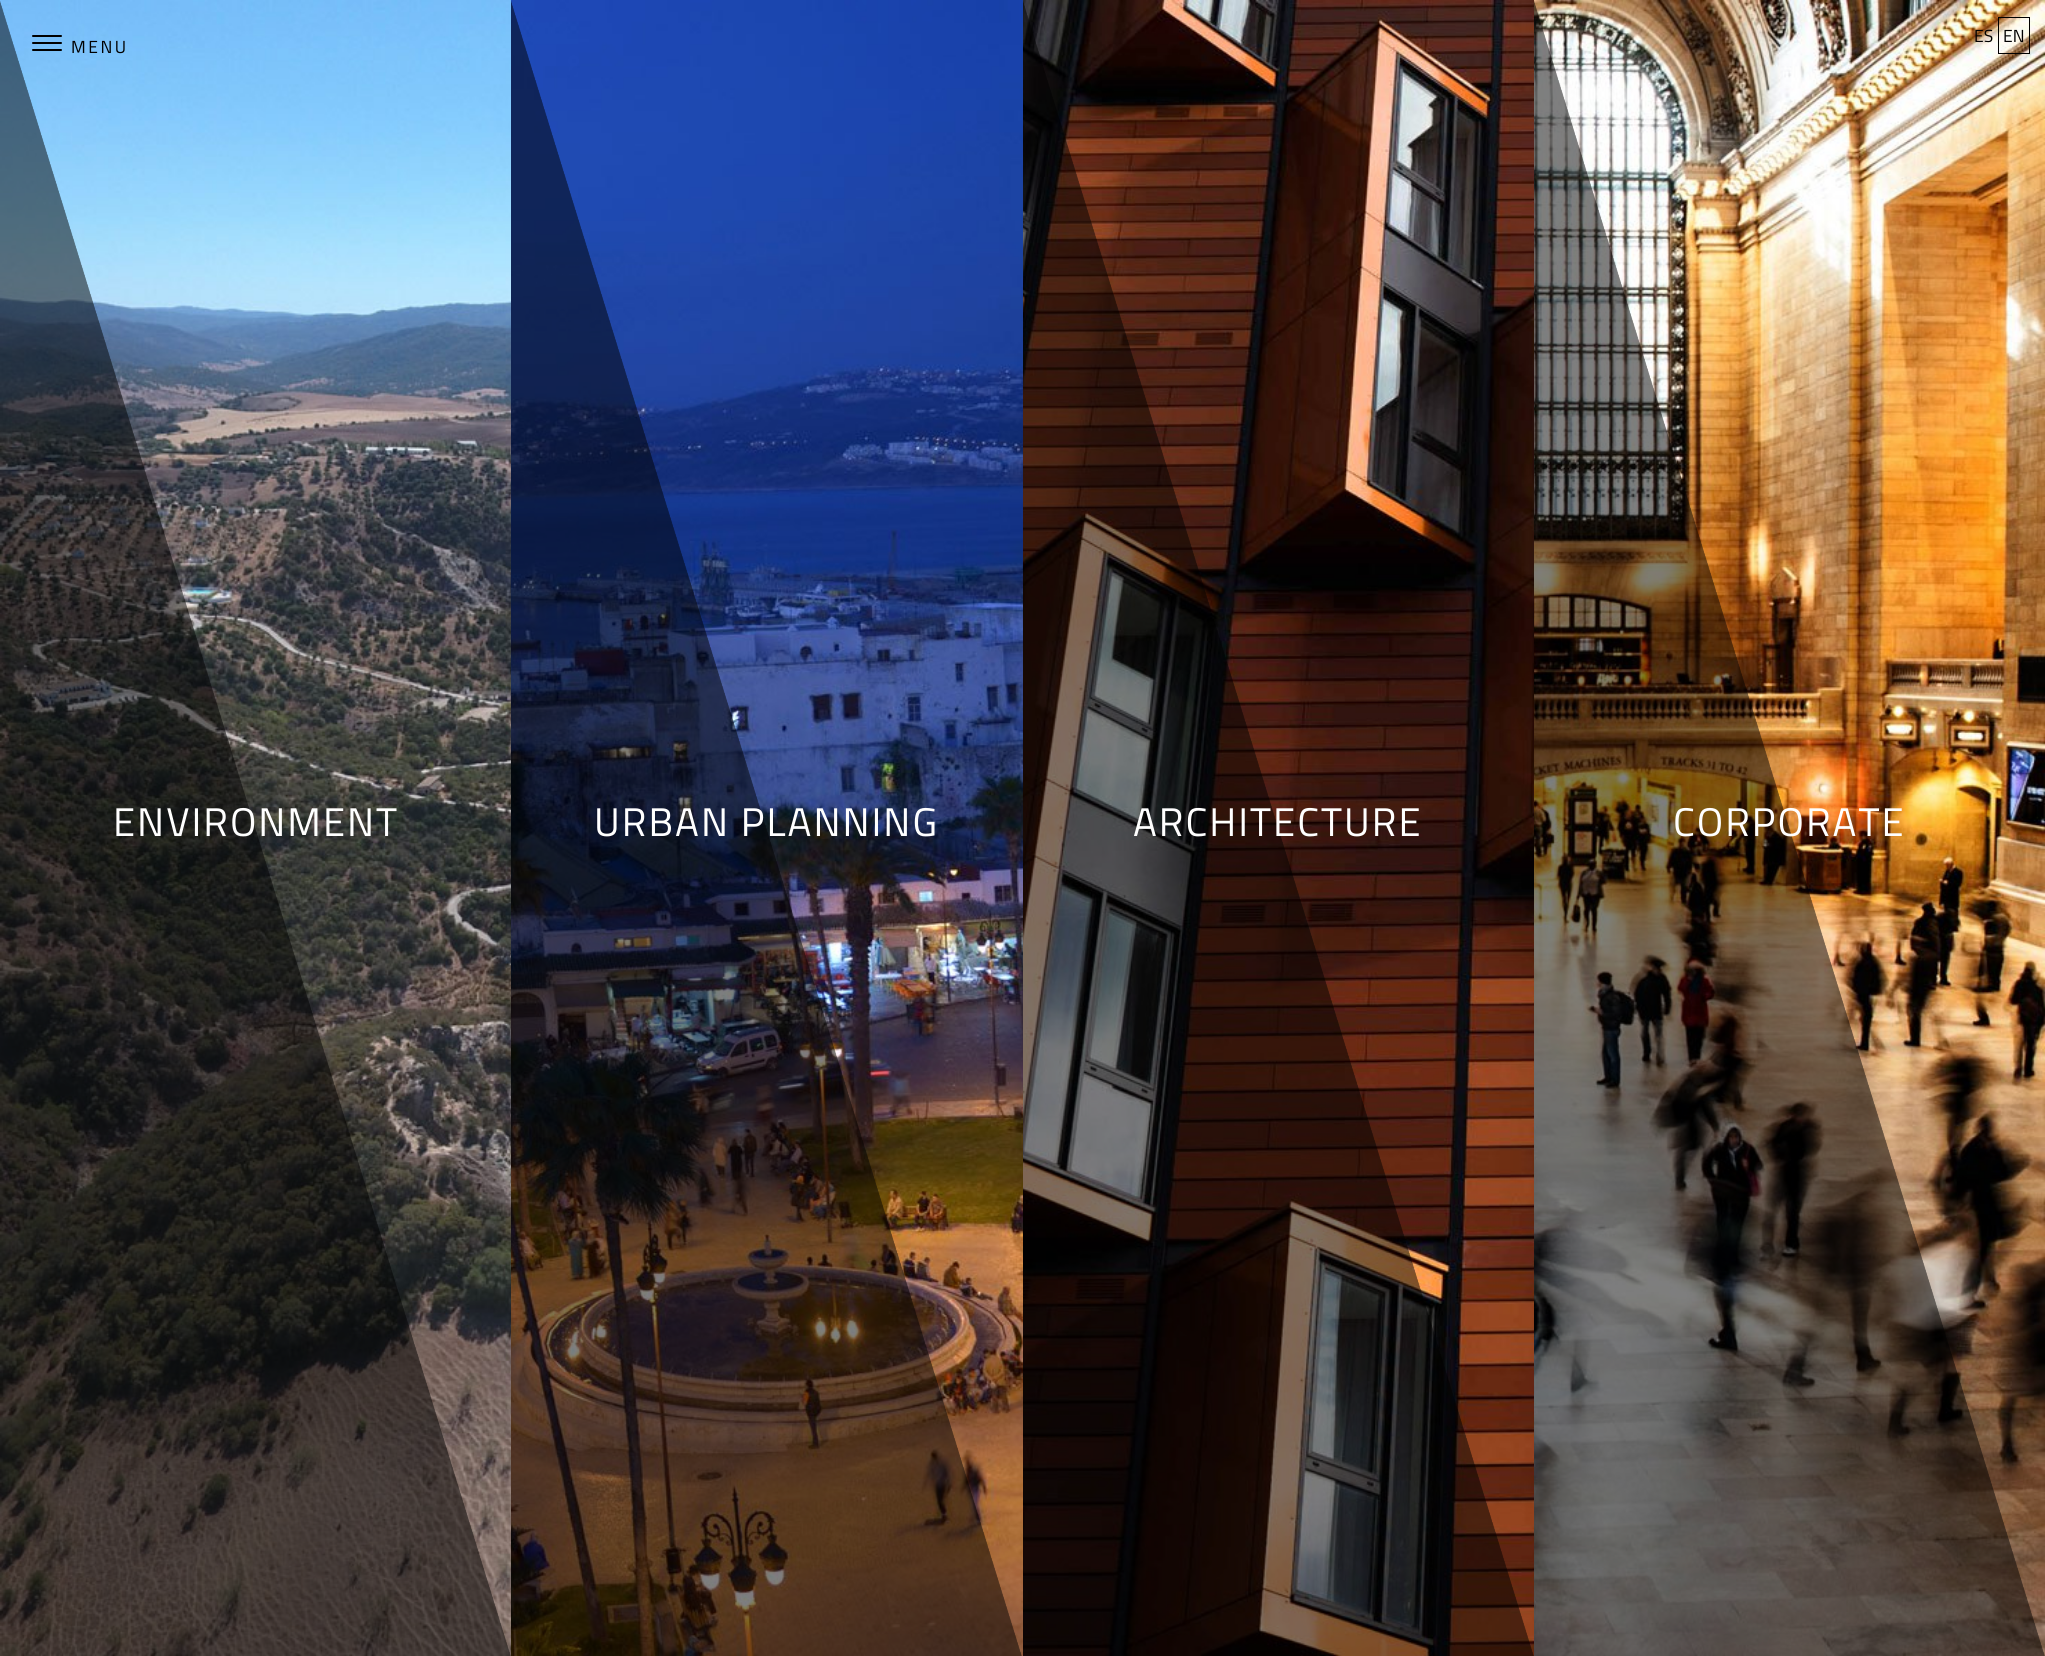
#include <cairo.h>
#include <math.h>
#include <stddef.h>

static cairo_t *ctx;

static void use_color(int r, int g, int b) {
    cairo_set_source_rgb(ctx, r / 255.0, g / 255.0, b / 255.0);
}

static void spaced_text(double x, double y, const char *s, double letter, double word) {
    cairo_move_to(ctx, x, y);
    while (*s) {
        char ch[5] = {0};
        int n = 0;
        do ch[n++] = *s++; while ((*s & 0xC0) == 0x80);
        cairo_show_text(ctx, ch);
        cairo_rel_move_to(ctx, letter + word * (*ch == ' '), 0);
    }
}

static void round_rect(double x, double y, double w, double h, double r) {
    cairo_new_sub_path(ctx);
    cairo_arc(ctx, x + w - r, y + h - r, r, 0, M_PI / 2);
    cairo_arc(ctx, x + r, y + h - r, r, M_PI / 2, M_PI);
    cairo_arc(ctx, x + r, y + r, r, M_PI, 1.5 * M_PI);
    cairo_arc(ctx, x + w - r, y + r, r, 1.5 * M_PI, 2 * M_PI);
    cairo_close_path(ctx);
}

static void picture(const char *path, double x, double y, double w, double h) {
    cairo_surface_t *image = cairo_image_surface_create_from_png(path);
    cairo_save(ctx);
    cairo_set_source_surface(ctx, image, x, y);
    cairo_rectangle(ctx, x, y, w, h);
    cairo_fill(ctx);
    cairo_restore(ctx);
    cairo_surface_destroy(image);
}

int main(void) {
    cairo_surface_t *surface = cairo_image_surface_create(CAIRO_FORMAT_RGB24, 2045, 1656);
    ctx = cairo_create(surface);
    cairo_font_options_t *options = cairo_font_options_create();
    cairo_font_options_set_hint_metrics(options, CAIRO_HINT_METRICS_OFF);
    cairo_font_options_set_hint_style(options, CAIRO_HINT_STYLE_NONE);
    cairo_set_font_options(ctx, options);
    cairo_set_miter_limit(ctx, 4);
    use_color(255, 255, 255);
    cairo_paint(ctx);
    picture("img1.png", 0, 0, 511, 1656);
    picture("img2.png", 0, 1, 511, 1655);
    use_color(0, 0, 0);
    round_rect(32, 42, 30, 2, 1);
    cairo_fill(ctx);
    round_rect(32, 35, 30, 2, 1);
    cairo_fill(ctx);
    round_rect(32, 49, 30, 2, 1);
    cairo_fill(ctx);
    cairo_select_font_face(ctx, "Titillium Web", CAIRO_FONT_SLANT_NORMAL, CAIRO_FONT_WEIGHT_NORMAL);
    cairo_set_font_size(ctx, 17.5);
    spaced_text(71, 53, "MENU", 2.5, 0);
    picture("img7.png", 1534, 0, 511, 1656);
    picture("img8.png", 1534, 1, 511, 1655);
    cairo_move_to(ctx, 1974, 42);
    cairo_show_text(ctx, "ES");
    cairo_rectangle(ctx, 1998.5, 17.5, 31, 36);
    cairo_set_line_width(ctx, 1);
    cairo_stroke(ctx);
    cairo_move_to(ctx, 2003, 42);
    cairo_show_text(ctx, "EN");
    cairo_set_font_size(ctx, 40);
    use_color(255, 255, 255);
    spaced_text(113, 836, "ENVIRONMENT", 2, 0);
    picture("img3.png", 511, 0, 512, 1656);
    picture("img4.png", 511, 1, 511, 1655);
    spaced_text(594, 836, "URBAN PLANNING", 2, 0);
    picture("img5.png", 1023, 0, 511, 1656);
    picture("img6.png", 1023, 1, 511, 1655);
    spaced_text(1133, 836, "ARCHITECTURE", 2, 0);
    spaced_text(1673, 836, "CORPORATE", 2, 0);
    cairo_surface_write_to_png(surface, "result.png");
    cairo_font_options_destroy(options);
    cairo_destroy(ctx);
    cairo_surface_destroy(surface);
    return 0;
}
